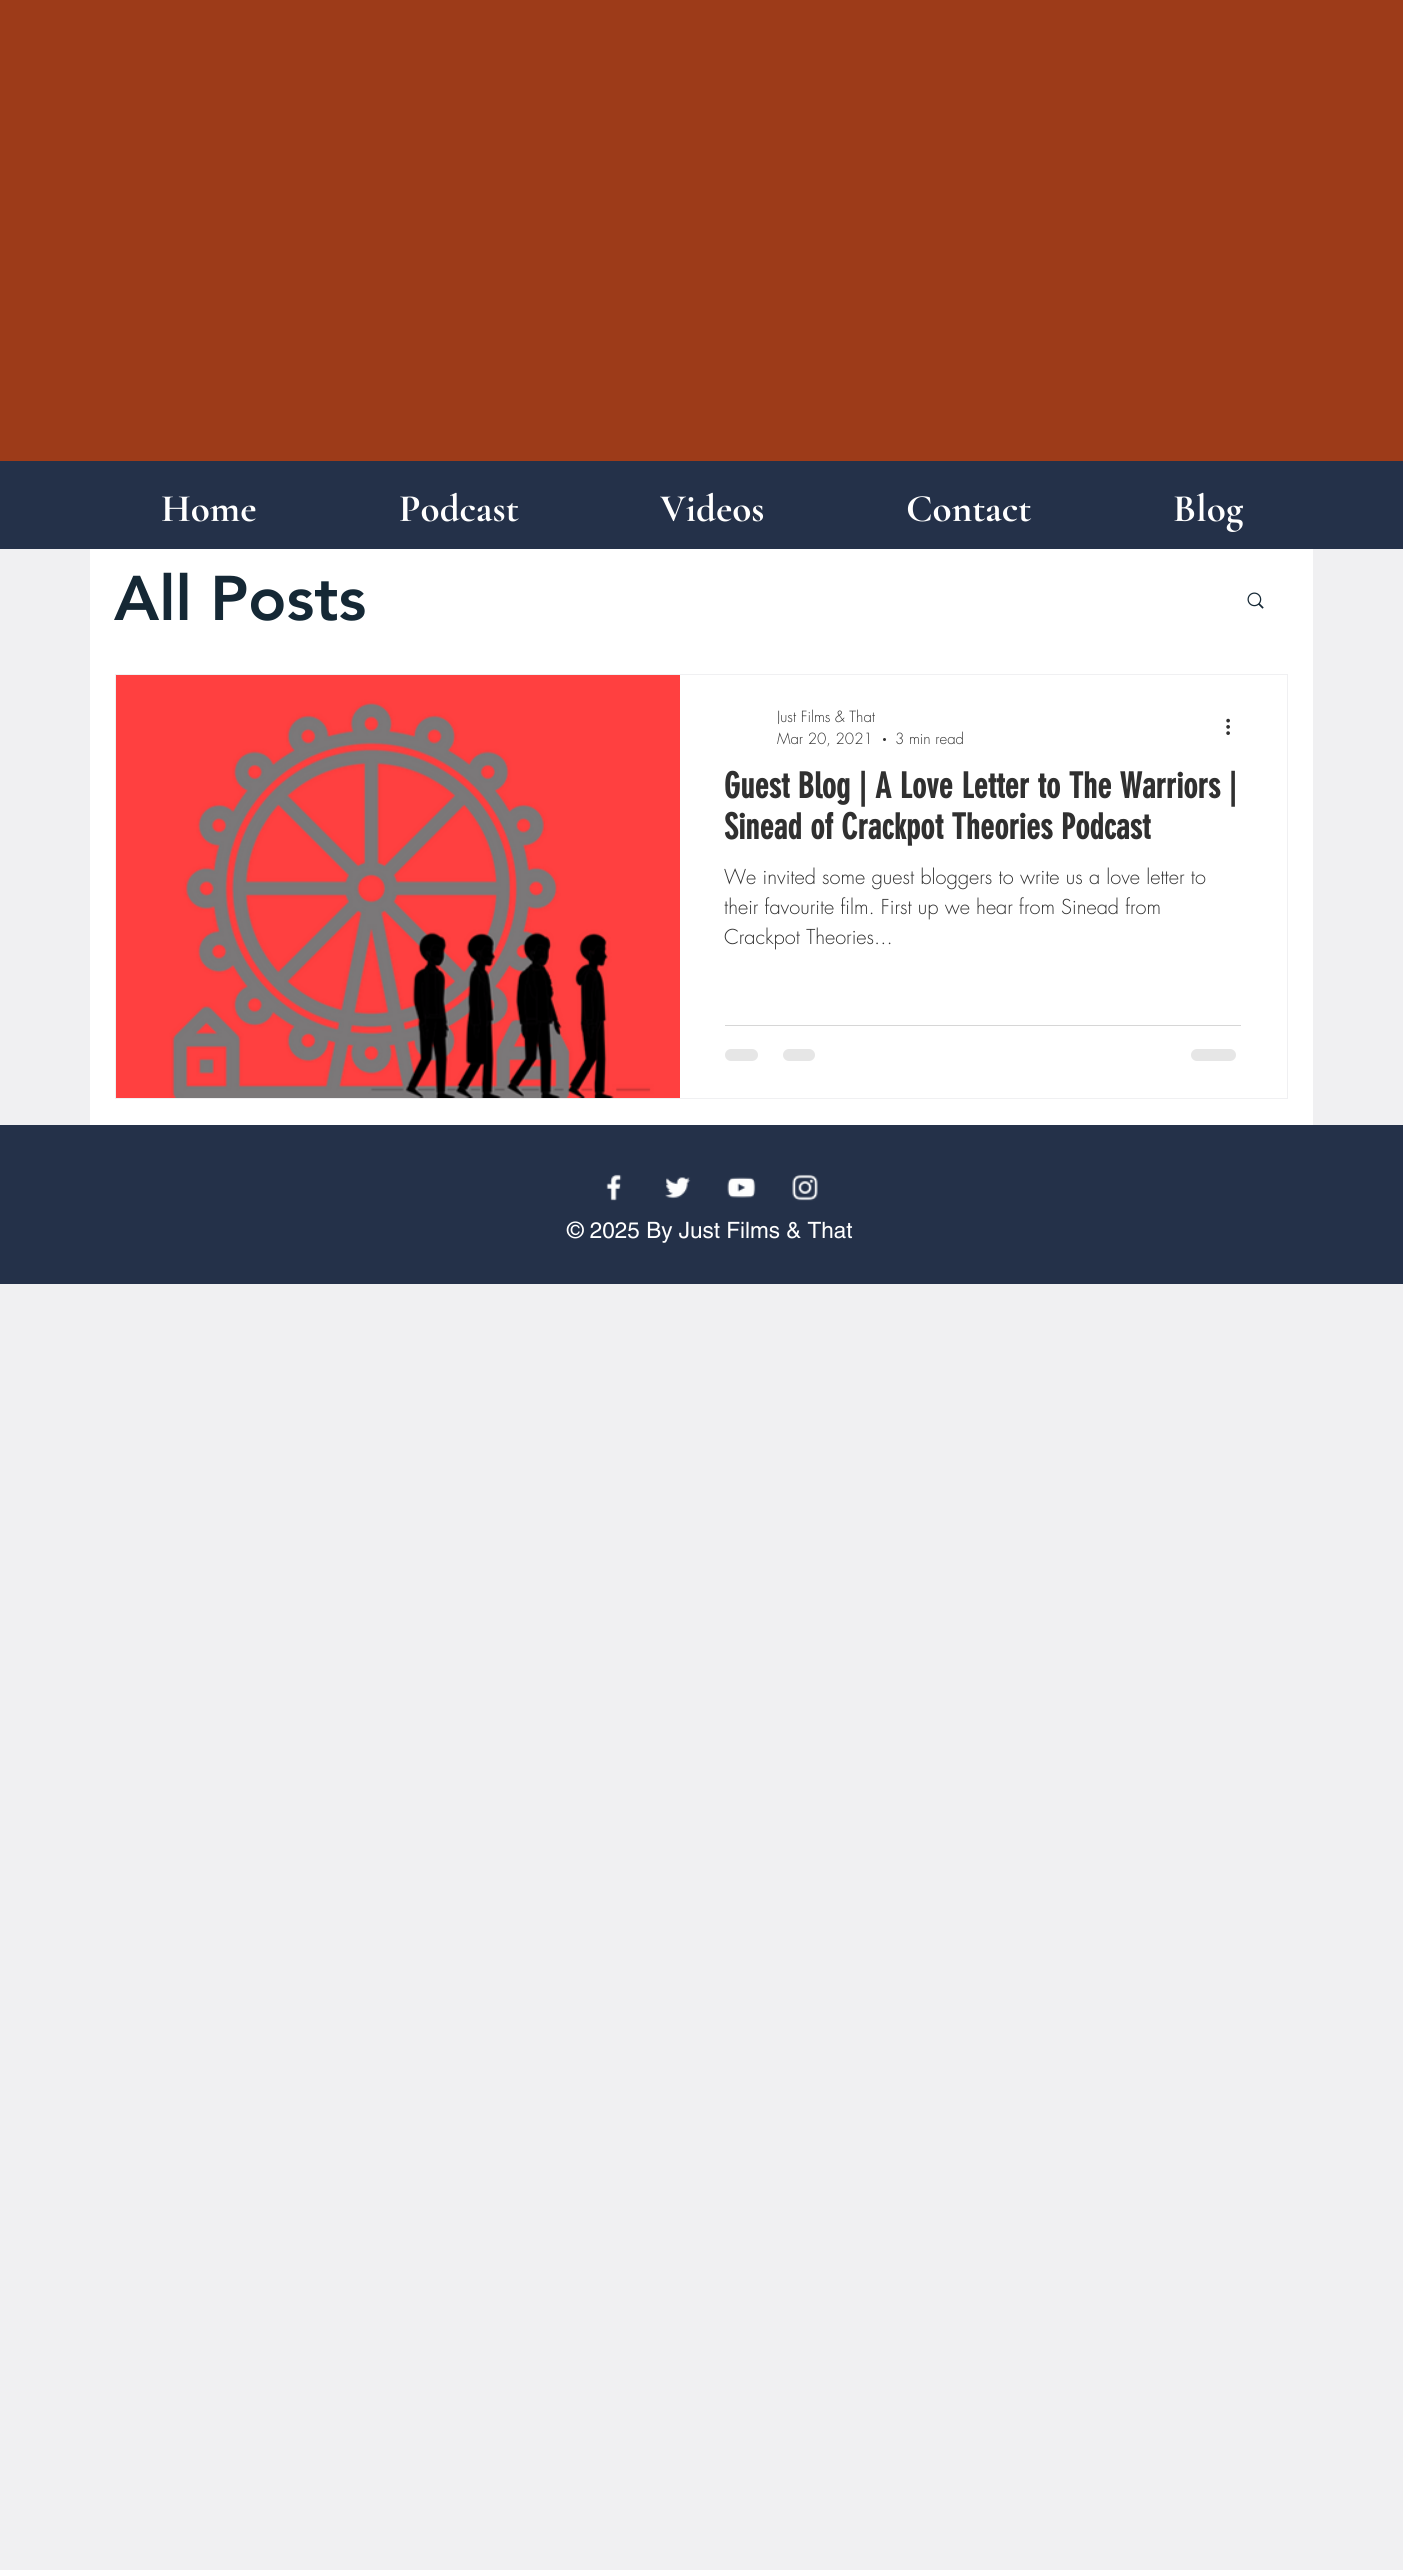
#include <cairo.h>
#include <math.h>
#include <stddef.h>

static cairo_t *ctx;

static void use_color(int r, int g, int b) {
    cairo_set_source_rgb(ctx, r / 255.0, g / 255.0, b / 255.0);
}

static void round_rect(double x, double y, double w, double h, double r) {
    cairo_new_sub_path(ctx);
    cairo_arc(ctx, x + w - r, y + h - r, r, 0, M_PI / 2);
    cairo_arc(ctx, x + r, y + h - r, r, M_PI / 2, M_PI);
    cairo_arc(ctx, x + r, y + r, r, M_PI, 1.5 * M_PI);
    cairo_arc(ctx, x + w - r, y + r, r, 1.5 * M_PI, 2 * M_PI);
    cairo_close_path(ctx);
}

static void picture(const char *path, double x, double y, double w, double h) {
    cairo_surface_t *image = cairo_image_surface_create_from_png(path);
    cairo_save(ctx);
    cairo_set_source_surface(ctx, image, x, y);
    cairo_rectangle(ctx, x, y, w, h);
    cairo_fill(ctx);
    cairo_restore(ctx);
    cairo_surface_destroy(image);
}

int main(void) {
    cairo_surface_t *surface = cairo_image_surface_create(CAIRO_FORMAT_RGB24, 1403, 2570);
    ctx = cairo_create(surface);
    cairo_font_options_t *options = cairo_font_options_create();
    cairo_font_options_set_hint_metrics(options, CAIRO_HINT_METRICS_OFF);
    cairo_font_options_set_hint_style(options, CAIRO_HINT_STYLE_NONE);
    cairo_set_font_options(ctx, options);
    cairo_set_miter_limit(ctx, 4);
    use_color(240, 240, 242);
    cairo_paint(ctx);
    use_color(36, 49, 73);
    cairo_rectangle(ctx, 0, 461, 1403, 88);
    cairo_fill(ctx);
    use_color(157, 59, 25);
    cairo_rectangle(ctx, 0, 0, 1403, 461);
    cairo_fill(ctx);
    cairo_select_font_face(ctx, "Cormorant Garamond", CAIRO_FONT_SLANT_NORMAL, CAIRO_FONT_WEIGHT_BOLD);
    cairo_set_font_size(ctx, 39);
    use_color(255, 255, 255);
    cairo_move_to(ctx, 161, 521);
    cairo_show_text(ctx, "Home");
    cairo_move_to(ctx, 399, 521);
    cairo_show_text(ctx, "Podcast");
    cairo_move_to(ctx, 660, 521);
    cairo_show_text(ctx, "Videos");
    cairo_move_to(ctx, 906, 521);
    cairo_show_text(ctx, "Contact");
    cairo_move_to(ctx, 1173, 521);
    cairo_show_text(ctx, "Blog");
    cairo_rectangle(ctx, 90, 549, 1223, 576);
    cairo_fill(ctx);
    cairo_select_font_face(ctx, "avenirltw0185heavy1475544 Black", CAIRO_FONT_SLANT_NORMAL, CAIRO_FONT_WEIGHT_NORMAL);
    cairo_set_font_size(ctx, 62.5);
    use_color(21, 40, 53);
    cairo_move_to(ctx, 114, 620);
    cairo_show_text(ctx, "All Posts");
    picture("img1.png", 1247, 592, 17, 17);
    cairo_rectangle(ctx, 115.5, 674.5, 1172, 424);
    use_color(240, 240, 242);
    cairo_set_line_width(ctx, 1);
    cairo_stroke(ctx);
    picture("img2.png", 116, 675, 564, 423);
    cairo_save(ctx);
    cairo_rectangle(ctx, 778, 708, 97, 20);
    cairo_clip(ctx);
    cairo_select_font_face(ctx, "futura Light", CAIRO_FONT_SLANT_NORMAL, CAIRO_FONT_WEIGHT_NORMAL);
    cairo_set_font_size(ctx, 15);
    use_color(48, 48, 48);
    cairo_move_to(ctx, 777, 722);
    cairo_show_text(ctx, "Just Films & That");
    cairo_restore(ctx);
    cairo_select_font_face(ctx, "futura Light", CAIRO_FONT_SLANT_NORMAL, CAIRO_FONT_WEIGHT_NORMAL);
    cairo_set_font_size(ctx, 15);
    use_color(48, 48, 48);
    cairo_move_to(ctx, 777, 744);
    cairo_show_text(ctx, "Mar 20, 2021");
    cairo_new_path(ctx);
    cairo_arc(ctx, 884.5, 739.5, 1.5, 0, 2 * M_PI);
    cairo_fill(ctx);
    cairo_move_to(ctx, 895, 744);
    cairo_show_text(ctx, "3 min read");
    picture("img3.png", 1226, 718, 4, 17);
    cairo_select_font_face(ctx, "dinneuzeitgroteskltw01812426", CAIRO_FONT_SLANT_NORMAL, CAIRO_FONT_WEIGHT_BOLD);
    cairo_set_font_size(ctx, 35);
    cairo_move_to(ctx, 724, 798);
    cairo_show_text(ctx, "Guest Blog | A Love Letter to The Warriors |");
    cairo_move_to(ctx, 724, 839);
    cairo_show_text(ctx, "Sinead of Crackpot Theories Podcast");
    cairo_select_font_face(ctx, "futura Light", CAIRO_FONT_SLANT_NORMAL, CAIRO_FONT_WEIGHT_NORMAL);
    cairo_set_font_size(ctx, 20);
    cairo_move_to(ctx, 724, 884);
    cairo_show_text(ctx, "We invited some guest bloggers to write us a love letter to");
    cairo_move_to(ctx, 724, 914);
    cairo_show_text(ctx, "their favourite film. First up we hear from Sinead from");
    cairo_move_to(ctx, 724, 944);
    cairo_show_text(ctx, "Crackpot Theories...");
    use_color(214, 214, 214);
    cairo_rectangle(ctx, 725, 1025, 516, 1);
    cairo_fill(ctx);
    use_color(230, 230, 230);
    round_rect(725, 1049, 33, 12, 6);
    cairo_fill(ctx);
    round_rect(783, 1049, 32, 12, 6);
    cairo_fill(ctx);
    round_rect(1191, 1049, 45, 12, 6);
    cairo_fill(ctx);
    use_color(36, 49, 73);
    cairo_rectangle(ctx, 0, 1125, 1403, 159);
    cairo_fill(ctx);
    picture("img4.png", 606, 1174, 16, 27);
    picture("img5.png", 665, 1177, 26, 22);
    picture("img6.png", 727, 1177, 29, 21);
    picture("img7.png", 792, 1174, 26, 27);
    cairo_select_font_face(ctx, "helvetica", CAIRO_FONT_SLANT_NORMAL, CAIRO_FONT_WEIGHT_NORMAL);
    cairo_set_font_size(ctx, 22.5);
    use_color(255, 255, 255);
    cairo_move_to(ctx, 567, 1238);
    cairo_show_text(ctx, "© 2025 By Just Films & That");
    cairo_surface_write_to_png(surface, "result.png");
    cairo_font_options_destroy(options);
    cairo_destroy(ctx);
    cairo_surface_destroy(surface);
    return 0;
}
